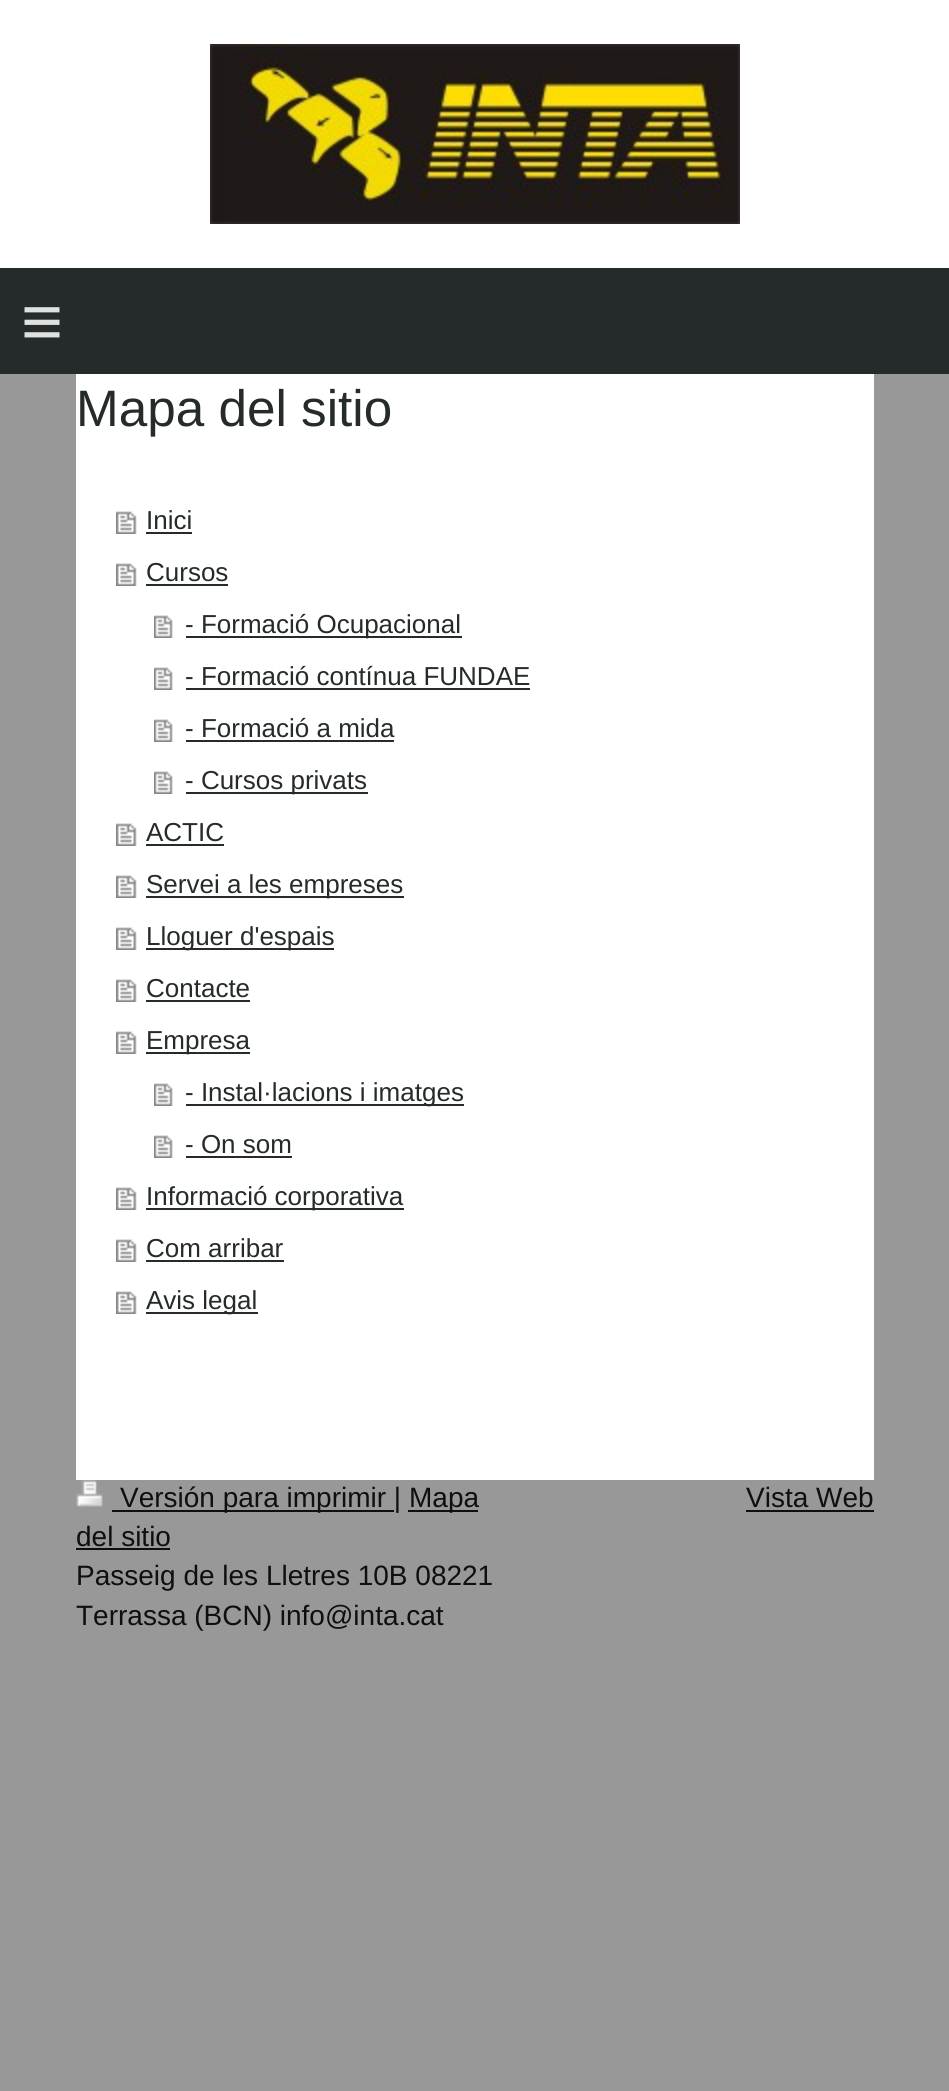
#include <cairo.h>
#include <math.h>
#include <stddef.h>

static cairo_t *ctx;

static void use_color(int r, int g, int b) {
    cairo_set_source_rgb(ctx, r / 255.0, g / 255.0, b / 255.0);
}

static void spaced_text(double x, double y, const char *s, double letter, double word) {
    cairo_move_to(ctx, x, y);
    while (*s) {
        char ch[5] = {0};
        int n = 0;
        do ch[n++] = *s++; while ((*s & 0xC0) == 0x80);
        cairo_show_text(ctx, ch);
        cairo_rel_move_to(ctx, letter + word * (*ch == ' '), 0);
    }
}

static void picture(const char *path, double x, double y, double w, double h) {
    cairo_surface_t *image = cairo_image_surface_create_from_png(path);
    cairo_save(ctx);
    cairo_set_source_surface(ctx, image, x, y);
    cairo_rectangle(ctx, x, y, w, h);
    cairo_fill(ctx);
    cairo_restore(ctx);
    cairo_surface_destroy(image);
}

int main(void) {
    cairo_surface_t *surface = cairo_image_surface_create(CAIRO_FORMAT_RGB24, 949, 2091);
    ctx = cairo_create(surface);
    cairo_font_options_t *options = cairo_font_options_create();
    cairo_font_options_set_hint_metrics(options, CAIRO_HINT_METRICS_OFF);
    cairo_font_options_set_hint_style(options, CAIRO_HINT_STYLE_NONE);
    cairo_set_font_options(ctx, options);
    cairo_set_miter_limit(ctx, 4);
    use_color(152, 152, 152);
    cairo_paint(ctx);
    use_color(255, 255, 255);
    cairo_rectangle(ctx, 0, 0, 949, 268);
    cairo_fill(ctx);
    picture("img1.png", 210, 44, 530, 180);
    use_color(37, 43, 43);
    cairo_rectangle(ctx, 0, 268, 949, 106);
    cairo_fill(ctx);
    cairo_select_font_face(ctx, "Liberation Sans", CAIRO_FONT_SLANT_NORMAL, CAIRO_FONT_WEIGHT_NORMAL);
    cairo_set_font_size(ctx, 72);
    use_color(223, 225, 225);
    spaced_text(21, 346, "≡", 21, 0);
    use_color(255, 255, 255);
    cairo_rectangle(ctx, 76, 374, 798, 1106);
    cairo_fill(ctx);
    cairo_set_font_size(ctx, 51.25);
    use_color(37, 43, 43);
    cairo_move_to(ctx, 76, 426);
    cairo_show_text(ctx, "Mapa del sitio");
    picture("img2.png", 116, 511, 21, 23);
    cairo_set_font_size(ctx, 26);
    cairo_move_to(ctx, 146, 529);
    cairo_show_text(ctx, "Inici");
    cairo_rectangle(ctx, 146, 532, 46, 2);
    cairo_fill(ctx);
    picture("img2.png", 116, 563, 21, 23);
    cairo_move_to(ctx, 146, 581);
    cairo_show_text(ctx, "Cursos");
    cairo_rectangle(ctx, 146, 584, 82, 2);
    cairo_fill(ctx);
    picture("img3.png", 154, 615, 19, 23);
    cairo_rectangle(ctx, 186, 636, 276, 2);
    cairo_fill(ctx);
    cairo_move_to(ctx, 185, 633);
    cairo_show_text(ctx, "- Formació Ocupacional");
    picture("img3.png", 154, 667, 19, 23);
    cairo_move_to(ctx, 185, 685);
    cairo_show_text(ctx, "- Formació contínua FUNDAE");
    cairo_rectangle(ctx, 186, 688, 344, 2);
    cairo_fill(ctx);
    picture("img3.png", 154, 719, 19, 23);
    cairo_move_to(ctx, 185, 737);
    cairo_show_text(ctx, "- Formació a mida");
    cairo_rectangle(ctx, 186, 740, 208, 2);
    cairo_fill(ctx);
    picture("img3.png", 154, 771, 19, 23);
    cairo_rectangle(ctx, 186, 792, 182, 2);
    cairo_fill(ctx);
    cairo_move_to(ctx, 185, 789);
    cairo_show_text(ctx, "- Cursos privats");
    picture("img2.png", 116, 823, 21, 23);
    cairo_move_to(ctx, 146, 841);
    cairo_show_text(ctx, "ACTIC");
    cairo_rectangle(ctx, 146, 844, 78, 2);
    cairo_fill(ctx);
    picture("img2.png", 116, 875, 21, 23);
    cairo_rectangle(ctx, 146, 896, 258, 2);
    cairo_fill(ctx);
    cairo_move_to(ctx, 146, 893);
    cairo_show_text(ctx, "Servei a les empreses");
    picture("img2.png", 116, 927, 21, 23);
    cairo_rectangle(ctx, 146, 948, 188, 2);
    cairo_fill(ctx);
    cairo_move_to(ctx, 146, 945);
    cairo_show_text(ctx, "Lloguer d'espais");
    picture("img2.png", 116, 979, 21, 23);
    cairo_move_to(ctx, 146, 997);
    cairo_show_text(ctx, "Contacte");
    cairo_rectangle(ctx, 146, 1000, 104, 2);
    cairo_fill(ctx);
    picture("img2.png", 116, 1031, 21, 23);
    cairo_rectangle(ctx, 146, 1052, 104, 2);
    cairo_fill(ctx);
    cairo_move_to(ctx, 146, 1049);
    cairo_show_text(ctx, "Empresa");
    picture("img3.png", 154, 1083, 19, 23);
    cairo_rectangle(ctx, 186, 1104, 278, 2);
    cairo_fill(ctx);
    cairo_move_to(ctx, 185, 1101);
    cairo_show_text(ctx, "- Instal·lacions i imatges");
    picture("img3.png", 154, 1135, 19, 23);
    cairo_move_to(ctx, 185, 1153);
    cairo_show_text(ctx, "- On som");
    cairo_rectangle(ctx, 186, 1156, 106, 2);
    cairo_fill(ctx);
    picture("img2.png", 116, 1187, 21, 23);
    cairo_rectangle(ctx, 146, 1208, 258, 2);
    cairo_fill(ctx);
    cairo_move_to(ctx, 146, 1205);
    cairo_show_text(ctx, "Informació corporativa");
    picture("img2.png", 116, 1239, 21, 23);
    cairo_move_to(ctx, 146, 1257);
    cairo_show_text(ctx, "Com arribar");
    cairo_rectangle(ctx, 146, 1260, 138, 2);
    cairo_fill(ctx);
    picture("img2.png", 116, 1291, 21, 23);
    cairo_rectangle(ctx, 146, 1312, 112, 2);
    cairo_fill(ctx);
    cairo_move_to(ctx, 146, 1309);
    cairo_show_text(ctx, "Avis legal");
    picture("img4.png", 76, 1480, 27, 27);
    use_color(15, 15, 15);
    cairo_rectangle(ctx, 112, 1510, 282, 2);
    cairo_fill(ctx);
    cairo_set_font_size(ctx, 28);
    cairo_move_to(ctx, 120, 1507);
    cairo_show_text(ctx, "Versión para imprimir |");
    cairo_rectangle(ctx, 408, 1510, 70, 2);
    cairo_fill(ctx);
    cairo_move_to(ctx, 409, 1507);
    cairo_show_text(ctx, "Mapa");
    cairo_move_to(ctx, 76, 1546);
    cairo_show_text(ctx, "del sitio");
    cairo_rectangle(ctx, 76, 1548, 94, 2);
    cairo_fill(ctx);
    cairo_move_to(ctx, 76, 1585);
    cairo_show_text(ctx, "Passeig de les Lletres 10B 08221");
    cairo_move_to(ctx, 76, 1625);
    cairo_show_text(ctx, "Terrassa (BCN) info@inta.cat");
    cairo_move_to(ctx, 746, 1507);
    cairo_show_text(ctx, "Vista Web");
    cairo_rectangle(ctx, 746, 1510, 128, 2);
    cairo_fill(ctx);
    cairo_surface_write_to_png(surface, "result.png");
    cairo_font_options_destroy(options);
    cairo_destroy(ctx);
    cairo_surface_destroy(surface);
    return 0;
}
